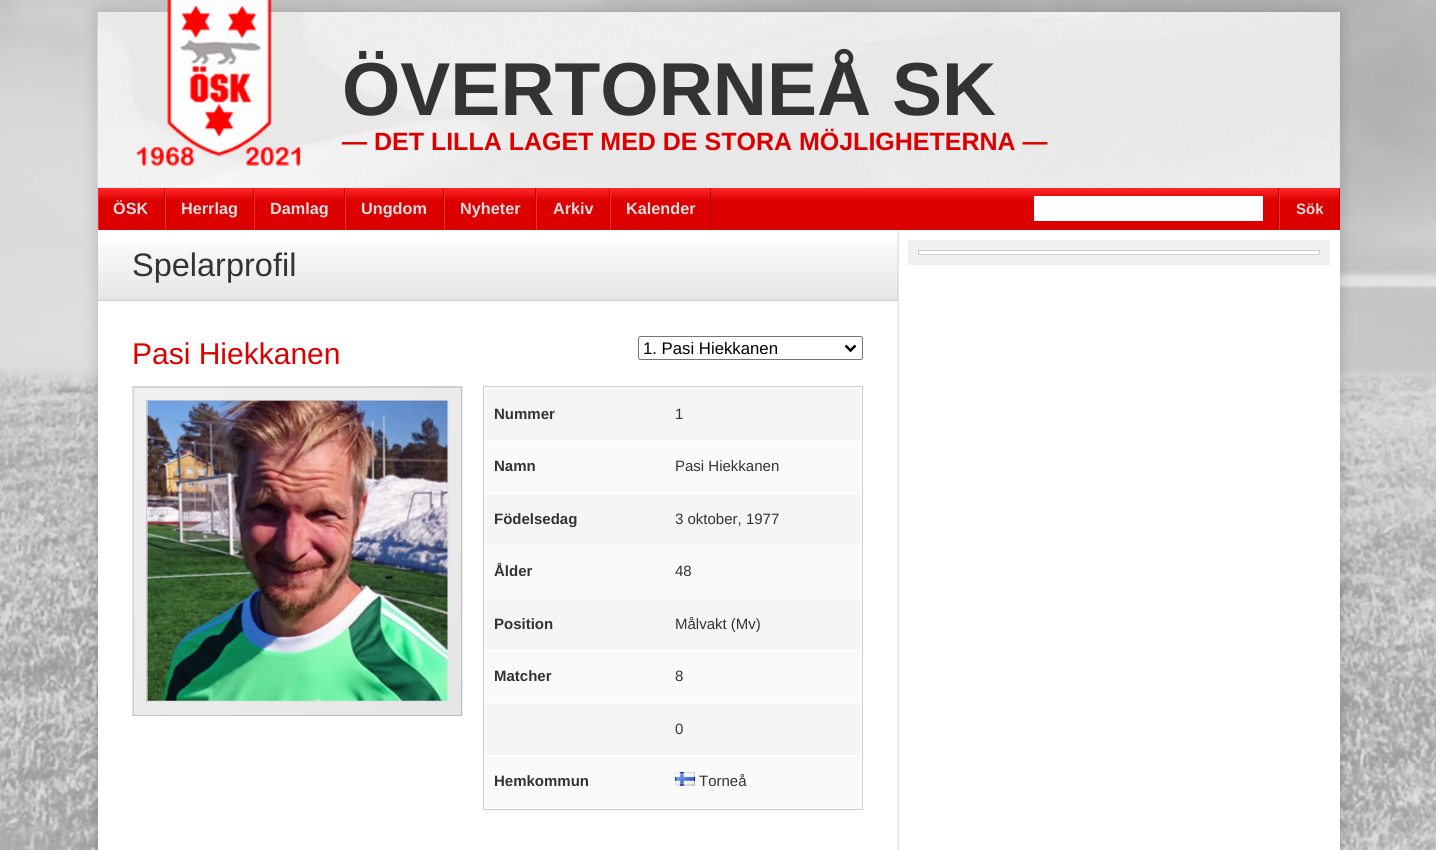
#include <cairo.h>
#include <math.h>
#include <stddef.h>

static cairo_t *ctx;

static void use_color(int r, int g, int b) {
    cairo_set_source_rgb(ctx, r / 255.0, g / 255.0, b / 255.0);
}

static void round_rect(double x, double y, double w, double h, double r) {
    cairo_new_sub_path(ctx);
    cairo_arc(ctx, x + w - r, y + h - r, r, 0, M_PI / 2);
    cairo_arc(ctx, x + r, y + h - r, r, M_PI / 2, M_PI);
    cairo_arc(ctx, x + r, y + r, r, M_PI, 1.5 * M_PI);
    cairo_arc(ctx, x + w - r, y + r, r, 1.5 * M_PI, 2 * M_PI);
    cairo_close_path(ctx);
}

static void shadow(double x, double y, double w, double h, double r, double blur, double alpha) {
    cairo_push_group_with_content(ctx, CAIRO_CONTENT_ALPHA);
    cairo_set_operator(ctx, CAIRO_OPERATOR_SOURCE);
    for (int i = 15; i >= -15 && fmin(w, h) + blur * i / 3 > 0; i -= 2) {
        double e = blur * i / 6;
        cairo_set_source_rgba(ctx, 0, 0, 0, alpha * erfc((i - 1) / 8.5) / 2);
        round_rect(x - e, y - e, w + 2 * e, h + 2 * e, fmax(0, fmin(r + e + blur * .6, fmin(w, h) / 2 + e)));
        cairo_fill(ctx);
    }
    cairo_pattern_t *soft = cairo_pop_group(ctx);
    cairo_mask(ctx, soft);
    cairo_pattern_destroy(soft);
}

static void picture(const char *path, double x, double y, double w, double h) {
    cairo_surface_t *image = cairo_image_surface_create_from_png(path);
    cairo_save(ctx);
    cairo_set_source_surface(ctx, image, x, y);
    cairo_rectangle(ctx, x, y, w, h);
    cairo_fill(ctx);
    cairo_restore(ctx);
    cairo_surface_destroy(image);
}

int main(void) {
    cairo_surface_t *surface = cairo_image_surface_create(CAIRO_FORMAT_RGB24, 1436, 850);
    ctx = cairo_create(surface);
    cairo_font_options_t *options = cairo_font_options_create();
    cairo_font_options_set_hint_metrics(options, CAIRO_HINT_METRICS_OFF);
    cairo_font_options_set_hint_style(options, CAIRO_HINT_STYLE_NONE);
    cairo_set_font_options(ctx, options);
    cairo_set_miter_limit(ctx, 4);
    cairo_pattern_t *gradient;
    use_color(255, 255, 255);
    cairo_paint(ctx);
    picture("img1.png", 0, 0, 1436, 850);
    use_color(0, 0, 0);
    shadow(98, 13, 1242, 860, 0, 7.5, 0.2);
    use_color(255, 255, 255);
    cairo_rectangle(ctx, 98, 230, 1242, 620);
    cairo_fill(ctx);
    use_color(240, 240, 240);
    cairo_rectangle(ctx, 98, 187, 1242, 1);
    cairo_fill(ctx);
    picture("img2.png", 97, 12, 1243, 175);
    picture("img3.png", 136, 0, 165, 166);
    cairo_select_font_face(ctx, "Liberation Sans", CAIRO_FONT_SLANT_NORMAL, CAIRO_FONT_WEIGHT_BOLD);
    cairo_set_font_size(ctx, 75);
    use_color(51, 51, 51);
    cairo_move_to(ctx, 342, 115);
    cairo_show_text(ctx, "ÖVERTORNEÅ SK");
    cairo_set_font_size(ctx, 25);
    use_color(221, 0, 0);
    cairo_move_to(ctx, 342, 150);
    cairo_show_text(ctx, "— DET LILLA LAGET MED DE STORA MÖJLIGHETERNA —");
    gradient = cairo_pattern_create_linear(98, 188, 98, 230);
    cairo_pattern_add_color_stop_rgba(gradient, 0, 1, 0.157, 0.157, 1);
    cairo_pattern_add_color_stop_rgba(gradient, 0.3, 0.867, 0, 0, 1);
    cairo_set_source(ctx, gradient);
    cairo_pattern_destroy(gradient);
    cairo_rectangle(ctx, 99, 188, 1240, 42);
    cairo_fill(ctx);
    use_color(181, 0, 0);
    cairo_rectangle(ctx, 164, 188, 1, 42);
    cairo_fill(ctx);
    use_color(255, 40, 40);
    cairo_rectangle(ctx, 98, 188, 1, 42);
    cairo_fill(ctx);
    cairo_set_font_size(ctx, 16.25);
    use_color(221, 221, 221);
    cairo_move_to(ctx, 113, 214);
    cairo_show_text(ctx, "ÖSK");
    use_color(181, 0, 0);
    cairo_rectangle(ctx, 253, 188, 1, 42);
    cairo_fill(ctx);
    use_color(255, 40, 40);
    cairo_rectangle(ctx, 165, 188, 1, 42);
    cairo_fill(ctx);
    use_color(221, 221, 221);
    cairo_move_to(ctx, 181, 214);
    cairo_show_text(ctx, "Herrlag");
    use_color(181, 0, 0);
    cairo_rectangle(ctx, 344, 188, 1, 42);
    cairo_fill(ctx);
    use_color(255, 40, 40);
    cairo_rectangle(ctx, 254, 188, 1, 42);
    cairo_fill(ctx);
    use_color(221, 221, 221);
    cairo_move_to(ctx, 270, 214);
    cairo_show_text(ctx, "Damlag");
    use_color(181, 0, 0);
    cairo_rectangle(ctx, 443, 188, 1, 42);
    cairo_fill(ctx);
    use_color(255, 40, 40);
    cairo_rectangle(ctx, 345, 188, 1, 42);
    cairo_fill(ctx);
    use_color(221, 221, 221);
    cairo_move_to(ctx, 361, 214);
    cairo_show_text(ctx, "Ungdom");
    use_color(181, 0, 0);
    cairo_rectangle(ctx, 535, 188, 1, 42);
    cairo_fill(ctx);
    use_color(255, 40, 40);
    cairo_rectangle(ctx, 444, 188, 1, 42);
    cairo_fill(ctx);
    use_color(221, 221, 221);
    cairo_move_to(ctx, 460, 214);
    cairo_show_text(ctx, "Nyheter");
    use_color(181, 0, 0);
    cairo_rectangle(ctx, 609, 188, 1, 42);
    cairo_fill(ctx);
    use_color(255, 40, 40);
    cairo_rectangle(ctx, 536, 188, 1, 42);
    cairo_fill(ctx);
    use_color(221, 221, 221);
    cairo_move_to(ctx, 553, 214);
    cairo_show_text(ctx, "Arkiv");
    use_color(181, 0, 0);
    cairo_rectangle(ctx, 710, 188, 1, 42);
    cairo_fill(ctx);
    use_color(255, 40, 40);
    cairo_rectangle(ctx, 610, 188, 1, 42);
    cairo_fill(ctx);
    use_color(221, 221, 221);
    cairo_move_to(ctx, 626, 214);
    cairo_show_text(ctx, "Kalender");
    use_color(181, 0, 0);
    cairo_rectangle(ctx, 1278, 188, 1, 42);
    cairo_fill(ctx);
    use_color(255, 255, 255);
    cairo_rectangle(ctx, 1034, 196, 229, 25);
    cairo_fill(ctx);
    use_color(181, 0, 0);
    cairo_rectangle(ctx, 1339, 188, 1, 42);
    cairo_fill(ctx);
    use_color(255, 40, 40);
    cairo_rectangle(ctx, 1279, 188, 1, 42);
    cairo_fill(ctx);
    cairo_set_font_size(ctx, 15);
    use_color(221, 221, 221);
    cairo_move_to(ctx, 1296, 214);
    cairo_show_text(ctx, "Sök");
    picture("img4.png", 897, 229, 2, 621);
    gradient = cairo_pattern_create_linear(98, 230, 98, 300);
    cairo_pattern_add_color_stop_rgba(gradient, 0, 0, 0, 0, 0);
    cairo_pattern_add_color_stop_rgba(gradient, 1, 0, 0, 0, 0.1);
    cairo_set_source(ctx, gradient);
    cairo_pattern_destroy(gradient);
    cairo_rectangle(ctx, 98, 245, 800, 55);
    cairo_fill(ctx);
    cairo_set_source_rgba(ctx, 0, 0, 0, 0.2);
    cairo_rectangle(ctx, 98, 300, 800, 1);
    cairo_fill(ctx);
    cairo_select_font_face(ctx, "Liberation Sans", CAIRO_FONT_SLANT_NORMAL, CAIRO_FONT_WEIGHT_NORMAL);
    cairo_set_font_size(ctx, 32.5);
    use_color(51, 51, 51);
    cairo_move_to(ctx, 132, 276);
    cairo_show_text(ctx, "Spelarprofil");
    cairo_set_font_size(ctx, 30);
    use_color(221, 0, 0);
    cairo_move_to(ctx, 132, 364);
    cairo_show_text(ctx, "Pasi Hiekkanen");
    round_rect(638.5, 336.5, 224, 23, 2);
    use_color(118, 118, 118);
    cairo_set_line_width(ctx, 1);
    cairo_stroke(ctx);
    cairo_new_path(ctx);
    cairo_move_to(ctx, 845.5, 345.5);
    cairo_line_to(ctx, 850.5, 350.5);
    cairo_line_to(ctx, 855.5, 345.5);
    use_color(0, 0, 0);
    cairo_set_line_width(ctx, 2.5);
    cairo_stroke(ctx);
    cairo_set_font_size(ctx, 16.75);
    cairo_move_to(ctx, 643, 354);
    cairo_show_text(ctx, "1. Pasi Hiekkanen");
    gradient = cairo_pattern_create_linear(-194, 60, 134, 388);
    cairo_pattern_add_color_stop_rgba(gradient, 0, 0.941, 0.941, 0.941, 1);
    cairo_pattern_add_color_stop_rgba(gradient, 1, 0.902, 0.902, 0.902, 1);
    cairo_set_source(ctx, gradient);
    cairo_pattern_destroy(gradient);
    cairo_rectangle(ctx, 133, 386, 1, 2);
    cairo_fill(ctx);
    gradient = cairo_pattern_create_linear(134, 60, 461, 388);
    cairo_pattern_add_color_stop_rgba(gradient, 0, 0.941, 0.941, 0.941, 1);
    cairo_pattern_add_color_stop_rgba(gradient, 1, 0.902, 0.902, 0.902, 1);
    cairo_set_source(ctx, gradient);
    cairo_pattern_destroy(gradient);
    cairo_rectangle(ctx, 134, 386, 327, 2);
    cairo_fill(ctx);
    gradient = cairo_pattern_create_linear(461, 60, 789, 388);
    cairo_pattern_add_color_stop_rgba(gradient, 0, 0.941, 0.941, 0.941, 1);
    cairo_pattern_add_color_stop_rgba(gradient, 1, 0.902, 0.902, 0.902, 1);
    cairo_set_source(ctx, gradient);
    cairo_pattern_destroy(gradient);
    cairo_rectangle(ctx, 461, 386, 2, 2);
    cairo_fill(ctx);
    gradient = cairo_pattern_create_linear(-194, 388, 134, 715);
    cairo_pattern_add_color_stop_rgba(gradient, 0, 0.941, 0.941, 0.941, 1);
    cairo_pattern_add_color_stop_rgba(gradient, 1, 0.902, 0.902, 0.902, 1);
    cairo_set_source(ctx, gradient);
    cairo_pattern_destroy(gradient);
    cairo_rectangle(ctx, 133, 388, 1, 327);
    cairo_fill(ctx);
    gradient = cairo_pattern_create_linear(134, 388, 461, 715);
    cairo_pattern_add_color_stop_rgba(gradient, 0, 0.941, 0.941, 0.941, 1);
    cairo_pattern_add_color_stop_rgba(gradient, 1, 0.902, 0.902, 0.902, 1);
    cairo_set_source(ctx, gradient);
    cairo_pattern_destroy(gradient);
    cairo_rectangle(ctx, 134, 388, 327, 327);
    cairo_fill(ctx);
    gradient = cairo_pattern_create_linear(461, 388, 789, 715);
    cairo_pattern_add_color_stop_rgba(gradient, 0, 0.941, 0.941, 0.941, 1);
    cairo_pattern_add_color_stop_rgba(gradient, 1, 0.902, 0.902, 0.902, 1);
    cairo_set_source(ctx, gradient);
    cairo_pattern_destroy(gradient);
    cairo_rectangle(ctx, 461, 388, 2, 327);
    cairo_fill(ctx);
    gradient = cairo_pattern_create_linear(-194, 715, 134, 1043);
    cairo_pattern_add_color_stop_rgba(gradient, 0, 0.941, 0.941, 0.941, 1);
    cairo_pattern_add_color_stop_rgba(gradient, 1, 0.902, 0.902, 0.902, 1);
    cairo_set_source(ctx, gradient);
    cairo_pattern_destroy(gradient);
    cairo_rectangle(ctx, 133, 715, 1, 1);
    cairo_fill(ctx);
    gradient = cairo_pattern_create_linear(134, 715, 461, 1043);
    cairo_pattern_add_color_stop_rgba(gradient, 0, 0.941, 0.941, 0.941, 1);
    cairo_pattern_add_color_stop_rgba(gradient, 1, 0.902, 0.902, 0.902, 1);
    cairo_set_source(ctx, gradient);
    cairo_pattern_destroy(gradient);
    cairo_rectangle(ctx, 134, 715, 327, 1);
    cairo_fill(ctx);
    gradient = cairo_pattern_create_linear(461, 715, 789, 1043);
    cairo_pattern_add_color_stop_rgba(gradient, 0, 0.941, 0.941, 0.941, 1);
    cairo_pattern_add_color_stop_rgba(gradient, 1, 0.902, 0.902, 0.902, 1);
    cairo_set_source(ctx, gradient);
    cairo_pattern_destroy(gradient);
    cairo_rectangle(ctx, 461, 715, 2, 1);
    cairo_fill(ctx);
    cairo_set_source_rgba(ctx, 0, 0, 0, 0.1);
    cairo_new_path(ctx);
    cairo_move_to(ctx, 132, 386);
    cairo_line_to(ctx, 462, 386);
    cairo_line_to(ctx, 461, 388);
    cairo_line_to(ctx, 134, 388);
    cairo_close_path(ctx);
    cairo_fill(ctx);
    cairo_set_source_rgba(ctx, 0, 0, 0, 0.2);
    cairo_new_path(ctx);
    cairo_move_to(ctx, 462, 386);
    cairo_line_to(ctx, 462, 716);
    cairo_line_to(ctx, 461, 715);
    cairo_line_to(ctx, 461, 388);
    cairo_close_path(ctx);
    cairo_fill(ctx);
    cairo_new_path(ctx);
    cairo_move_to(ctx, 462, 716);
    cairo_line_to(ctx, 132, 716);
    cairo_line_to(ctx, 134, 715);
    cairo_line_to(ctx, 461, 715);
    cairo_close_path(ctx);
    cairo_fill(ctx);
    cairo_set_source_rgba(ctx, 0, 0, 0, 0.1);
    cairo_new_path(ctx);
    cairo_move_to(ctx, 132, 716);
    cairo_line_to(ctx, 132, 386);
    cairo_line_to(ctx, 134, 388);
    cairo_line_to(ctx, 134, 715);
    cairo_close_path(ctx);
    cairo_fill(ctx);
    use_color(204, 204, 204);
    cairo_rectangle(ctx, 146, 400, 303, 1);
    cairo_fill(ctx);
    use_color(227, 227, 227);
    cairo_rectangle(ctx, 448, 400, 1, 303);
    cairo_fill(ctx);
    cairo_rectangle(ctx, 146, 701, 303, 1);
    cairo_fill(ctx);
    use_color(204, 204, 204);
    cairo_rectangle(ctx, 146, 400, 1, 303);
    cairo_fill(ctx);
    picture("img5.png", 147, 400, 301, 301);
    cairo_rectangle(ctx, 483.5, 386.5, 379, 423);
    cairo_set_line_width(ctx, 1);
    cairo_stroke(ctx);
    use_color(245, 245, 245);
    cairo_rectangle(ctx, 485, 389, 375, 51);
    cairo_fill(ctx);
    cairo_select_font_face(ctx, "Liberation Sans", CAIRO_FONT_SLANT_NORMAL, CAIRO_FONT_WEIGHT_BOLD);
    cairo_set_font_size(ctx, 15);
    use_color(51, 51, 51);
    cairo_move_to(ctx, 494, 419);
    cairo_show_text(ctx, "Nummer");
    cairo_select_font_face(ctx, "Liberation Sans", CAIRO_FONT_SLANT_NORMAL, CAIRO_FONT_WEIGHT_NORMAL);
    cairo_move_to(ctx, 675, 419);
    cairo_show_text(ctx, "1");
    use_color(250, 250, 250);
    cairo_rectangle(ctx, 485, 441, 375, 52);
    cairo_fill(ctx);
    cairo_select_font_face(ctx, "Liberation Sans", CAIRO_FONT_SLANT_NORMAL, CAIRO_FONT_WEIGHT_BOLD);
    use_color(51, 51, 51);
    cairo_move_to(ctx, 494, 471);
    cairo_show_text(ctx, "Namn");
    cairo_select_font_face(ctx, "Liberation Sans", CAIRO_FONT_SLANT_NORMAL, CAIRO_FONT_WEIGHT_NORMAL);
    cairo_move_to(ctx, 675, 471);
    cairo_show_text(ctx, "Pasi Hiekkanen");
    use_color(245, 245, 245);
    cairo_rectangle(ctx, 485, 494, 375, 51);
    cairo_fill(ctx);
    cairo_select_font_face(ctx, "Liberation Sans", CAIRO_FONT_SLANT_NORMAL, CAIRO_FONT_WEIGHT_BOLD);
    use_color(51, 51, 51);
    cairo_move_to(ctx, 494, 524);
    cairo_show_text(ctx, "Födelsedag");
    cairo_select_font_face(ctx, "Liberation Sans", CAIRO_FONT_SLANT_NORMAL, CAIRO_FONT_WEIGHT_NORMAL);
    cairo_move_to(ctx, 675, 524);
    cairo_show_text(ctx, "3 oktober, 1977");
    use_color(250, 250, 250);
    cairo_rectangle(ctx, 485, 546, 375, 52);
    cairo_fill(ctx);
    cairo_select_font_face(ctx, "Liberation Sans", CAIRO_FONT_SLANT_NORMAL, CAIRO_FONT_WEIGHT_BOLD);
    use_color(51, 51, 51);
    cairo_move_to(ctx, 494, 576);
    cairo_show_text(ctx, "Ålder");
    cairo_select_font_face(ctx, "Liberation Sans", CAIRO_FONT_SLANT_NORMAL, CAIRO_FONT_WEIGHT_NORMAL);
    cairo_move_to(ctx, 675, 576);
    cairo_show_text(ctx, "48");
    use_color(245, 245, 245);
    cairo_rectangle(ctx, 485, 599, 375, 51);
    cairo_fill(ctx);
    cairo_select_font_face(ctx, "Liberation Sans", CAIRO_FONT_SLANT_NORMAL, CAIRO_FONT_WEIGHT_BOLD);
    use_color(51, 51, 51);
    cairo_move_to(ctx, 494, 629);
    cairo_show_text(ctx, "Position");
    cairo_select_font_face(ctx, "Liberation Sans", CAIRO_FONT_SLANT_NORMAL, CAIRO_FONT_WEIGHT_NORMAL);
    cairo_move_to(ctx, 675, 629);
    cairo_show_text(ctx, "Målvakt (Mv)");
    use_color(250, 250, 250);
    cairo_rectangle(ctx, 485, 651, 375, 52);
    cairo_fill(ctx);
    cairo_select_font_face(ctx, "Liberation Sans", CAIRO_FONT_SLANT_NORMAL, CAIRO_FONT_WEIGHT_BOLD);
    use_color(51, 51, 51);
    cairo_move_to(ctx, 494, 681);
    cairo_show_text(ctx, "Matcher");
    cairo_select_font_face(ctx, "Liberation Sans", CAIRO_FONT_SLANT_NORMAL, CAIRO_FONT_WEIGHT_NORMAL);
    cairo_move_to(ctx, 675, 681);
    cairo_show_text(ctx, "8");
    use_color(245, 245, 245);
    cairo_rectangle(ctx, 485, 704, 375, 51);
    cairo_fill(ctx);
    use_color(51, 51, 51);
    cairo_move_to(ctx, 675, 734);
    cairo_show_text(ctx, "0");
    use_color(250, 250, 250);
    cairo_rectangle(ctx, 485, 756, 375, 52);
    cairo_fill(ctx);
    cairo_select_font_face(ctx, "Liberation Sans", CAIRO_FONT_SLANT_NORMAL, CAIRO_FONT_WEIGHT_BOLD);
    use_color(51, 51, 51);
    cairo_move_to(ctx, 494, 786);
    cairo_show_text(ctx, "Hemkommun");
    picture("img6.png", 675, 772, 20, 14);
    cairo_select_font_face(ctx, "Liberation Sans", CAIRO_FONT_SLANT_NORMAL, CAIRO_FONT_WEIGHT_NORMAL);
    cairo_move_to(ctx, 699, 786);
    cairo_show_text(ctx, "Torneå");
    use_color(240, 240, 240);
    cairo_rectangle(ctx, 908, 240, 422, 25);
    cairo_fill(ctx);
    use_color(255, 255, 255);
    cairo_rectangle(ctx, 918.5, 250.5, 401, 4);
    cairo_fill_preserve(ctx);
    use_color(204, 204, 204);
    cairo_stroke(ctx);
    cairo_surface_write_to_png(surface, "result.png");
    cairo_font_options_destroy(options);
    cairo_destroy(ctx);
    cairo_surface_destroy(surface);
    return 0;
}
